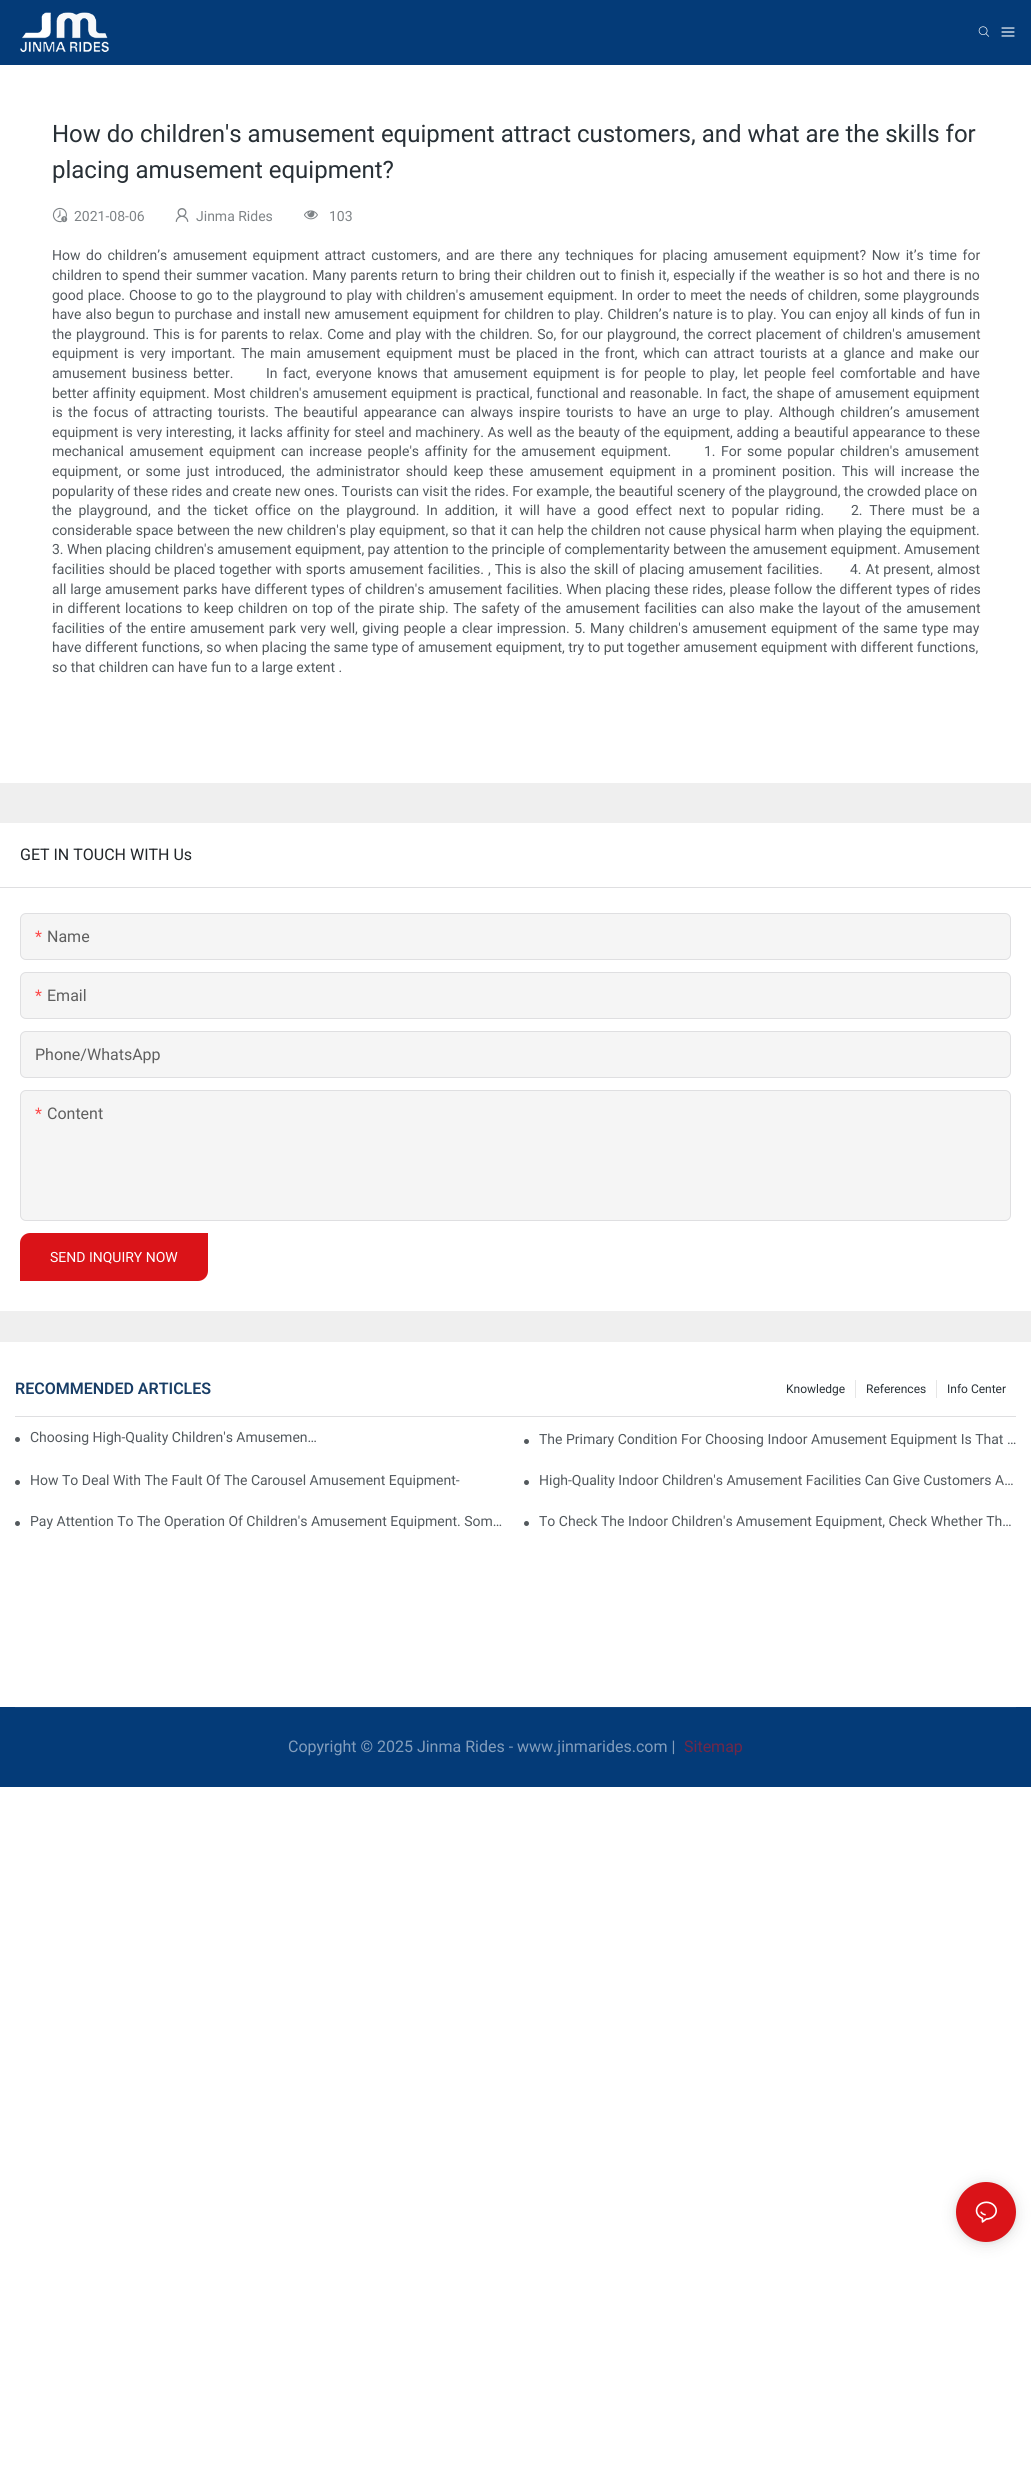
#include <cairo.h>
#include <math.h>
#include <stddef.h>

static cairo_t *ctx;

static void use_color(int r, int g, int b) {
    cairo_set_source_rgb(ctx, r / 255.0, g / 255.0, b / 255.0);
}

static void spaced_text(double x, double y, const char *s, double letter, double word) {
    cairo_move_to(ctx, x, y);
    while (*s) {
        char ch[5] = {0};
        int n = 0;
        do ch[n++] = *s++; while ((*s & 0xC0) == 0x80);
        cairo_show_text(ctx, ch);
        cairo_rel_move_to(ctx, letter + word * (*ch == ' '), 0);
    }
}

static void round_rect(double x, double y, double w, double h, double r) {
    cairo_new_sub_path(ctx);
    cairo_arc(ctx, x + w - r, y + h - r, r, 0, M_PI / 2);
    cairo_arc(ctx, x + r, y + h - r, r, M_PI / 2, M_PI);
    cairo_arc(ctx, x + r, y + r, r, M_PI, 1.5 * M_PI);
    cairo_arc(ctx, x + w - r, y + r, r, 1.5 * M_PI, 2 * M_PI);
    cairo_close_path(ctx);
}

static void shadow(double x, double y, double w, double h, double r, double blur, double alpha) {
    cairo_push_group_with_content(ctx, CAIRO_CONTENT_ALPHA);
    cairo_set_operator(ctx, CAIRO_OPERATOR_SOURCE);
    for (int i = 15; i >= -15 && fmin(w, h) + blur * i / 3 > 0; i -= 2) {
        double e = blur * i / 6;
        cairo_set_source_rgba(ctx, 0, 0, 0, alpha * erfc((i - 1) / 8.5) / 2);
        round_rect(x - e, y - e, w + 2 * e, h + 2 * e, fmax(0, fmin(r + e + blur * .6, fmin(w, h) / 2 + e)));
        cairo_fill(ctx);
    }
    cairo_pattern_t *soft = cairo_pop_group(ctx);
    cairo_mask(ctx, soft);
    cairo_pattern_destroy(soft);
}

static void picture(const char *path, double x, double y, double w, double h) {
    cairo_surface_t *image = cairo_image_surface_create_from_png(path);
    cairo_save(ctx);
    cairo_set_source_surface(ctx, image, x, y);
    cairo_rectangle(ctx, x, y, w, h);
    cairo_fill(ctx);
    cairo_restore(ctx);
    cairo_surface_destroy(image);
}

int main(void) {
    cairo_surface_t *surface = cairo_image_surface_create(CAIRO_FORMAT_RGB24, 1031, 2491);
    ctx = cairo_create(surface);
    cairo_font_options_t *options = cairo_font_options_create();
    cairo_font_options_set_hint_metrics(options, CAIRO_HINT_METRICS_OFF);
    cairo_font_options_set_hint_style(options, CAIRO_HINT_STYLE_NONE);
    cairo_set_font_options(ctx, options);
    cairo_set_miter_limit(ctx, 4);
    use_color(255, 255, 255);
    cairo_paint(ctx);
    use_color(4, 59, 120);
    cairo_rectangle(ctx, 0, 0, 1031, 65);
    cairo_fill(ctx);
    picture("img1.png", 20, 12, 89, 40);
    picture("img2.png", 978, 26, 12, 11);
    picture("img3.png", 1001, 27, 14, 10);
    use_color(239, 239, 239);
    cairo_rectangle(ctx, 0, 783, 1031, 559);
    cairo_fill(ctx);
    cairo_select_font_face(ctx, "Roboto", CAIRO_FONT_SLANT_NORMAL, CAIRO_FONT_WEIGHT_NORMAL);
    cairo_set_font_size(ctx, 24);
    use_color(40, 48, 54);
    cairo_move_to(ctx, 52, 142);
    cairo_show_text(ctx, "How do children's amusement equipment attract customers, and what are the skills for");
    cairo_move_to(ctx, 52, 178);
    cairo_show_text(ctx, "placing amusement equipment?");
    picture("img4.png", 52, 207, 16, 16);
    cairo_set_font_size(ctx, 14);
    use_color(126, 131, 134);
    cairo_move_to(ctx, 74, 221);
    cairo_show_text(ctx, "2021-08-06");
    picture("img5.png", 175, 208, 14, 14);
    cairo_move_to(ctx, 196, 221);
    cairo_show_text(ctx, "Jinma Rides");
    picture("img6.png", 304, 210, 14, 10);
    cairo_move_to(ctx, 329, 221);
    cairo_show_text(ctx, "103");
    use_color(83, 89, 94);
    spaced_text(52, 260, "How do children’s amusement equipment attract customers, and are there any techniques for placing amusement equipment? Now it’s time for", 0, 2.1);
    spaced_text(52, 280, "children to spend their summer vacation. Many parents return to bring their children out to finish it, especially if the weather is so hot and there is no", 0, 0.45);
    spaced_text(52, 300, "good place. Choose to go to the playground to play with children's amusement equipment. In order to meet the needs of children, some playgrounds", 0, 0.45);
    spaced_text(52, 319, "have also begun to purchase and install new amusement equipment for children to play. Children’s nature is to play. You can enjoy all kinds of fun in", 0, 0.45);
    spaced_text(52, 339, "the playground. This is for parents to relax. Come and play with the children. So, for our playground, the correct placement of children's amusement", 0, 0.75);
    spaced_text(52, 358, "equipment is very important. The main amusement equipment must be placed in the front, which can attract tourists at a glance and make our", 0, 2);
    spaced_text(52, 378, "amusement business better.", 0, 2);
    spaced_text(266, 378, "In fact, everyone knows that amusement equipment is for people to play, let people feel comfortable and have", 0, 2);
    spaced_text(52, 398, "better affinity equipment. Most children's amusement equipment is practical, functional and reasonable. In fact, the shape of amusement equipment", 0, 0.45);
    spaced_text(52, 417, "is the focus of attracting tourists. The beautiful appearance can always inspire tourists to have an urge to play. Although children’s amusement", 0, 2);
    spaced_text(52, 437, "equipment is very interesting, it lacks affinity for steel and machinery. As well as the beauty of the equipment, adding a beautiful appearance to these", 0, 0.25);
    spaced_text(52, 456, "mechanical amusement equipment can increase people's affinity for the amusement equipment.", 0, 2);
    spaced_text(704, 456, "1. For some popular children's amusement", 0, 2);
    spaced_text(52, 476, "equipment, or some just introduced, the administrator should keep these amusement equipment in a prominent position. This will increase the", 0, 2.4);
    cairo_move_to(ctx, 52, 496);
    cairo_show_text(ctx, "popularity of these rides and create new ones. Tourists can visit the rides. For example, the beautiful scenery of the playground, the crowded place on");
    spaced_text(52, 515, "the playground, and the ticket office on the playground. In addition, it will have a good effect next to popular riding.", 0, 3.25);
    spaced_text(851, 515, "2. There must be a", 0, 3.25);
    spaced_text(52, 535, "considerable space between the new children's play equipment, so that it can help the children not cause physical harm when playing the equipment.", 0, 0.3);
    cairo_move_to(ctx, 52, 554);
    cairo_show_text(ctx, "3. When placing children's amusement equipment, pay attention to the principle of complementarity between the amusement equipment. Amusement");
    spaced_text(52, 574, "facilities should be placed together with sports amusement facilities. , This is also the skill of placing amusement facilities.", 0, 0.5);
    spaced_text(850, 574, "4. At present, almost", 0, 0.5);
    spaced_text(52, 594, "all large amusement parks have different types of children's amusement facilities. When placing these rides, please follow the different types of rides", 0, 0.25);
    spaced_text(52, 613, "in different locations to keep children on top of the pirate ship. The safety of the amusement facilities can also make the layout of the amusement", 0, 1);
    spaced_text(52, 633, "facilities of the entire amusement park very well, giving people a clear impression. 5. Many children's amusement equipment of the same type may", 0, 0.9);
    cairo_move_to(ctx, 52, 652);
    cairo_show_text(ctx, "have different functions, so when placing the same type of amusement equipment, try to put together amusement equipment with different functions,");
    cairo_move_to(ctx, 52, 672);
    cairo_show_text(ctx, "so that children can have fun to a large extent .");
    use_color(255, 255, 255);
    cairo_rectangle(ctx, 0, 823, 1031, 488);
    cairo_fill(ctx);
    use_color(223, 223, 225);
    cairo_rectangle(ctx, 0, 887, 1031, 1);
    cairo_fill(ctx);
    cairo_set_font_size(ctx, 16);
    use_color(33, 37, 41);
    cairo_move_to(ctx, 20, 860);
    cairo_show_text(ctx, "GET IN TOUCH WITH Us");
    use_color(245, 245, 245);
    round_rect(20.5, 913.5, 990, 46, 5.5);
    cairo_fill_preserve(ctx);
    use_color(223, 223, 225);
    cairo_set_line_width(ctx, 1);
    cairo_stroke(ctx);
    use_color(252, 74, 74);
    cairo_move_to(ctx, 35, 942);
    cairo_show_text(ctx, "*");
    use_color(95, 95, 95);
    cairo_move_to(ctx, 47, 942);
    cairo_show_text(ctx, "Name");
    use_color(245, 245, 245);
    round_rect(20.5, 972.5, 990, 46, 5.5);
    cairo_fill_preserve(ctx);
    use_color(223, 223, 225);
    cairo_stroke(ctx);
    use_color(252, 74, 74);
    cairo_move_to(ctx, 35, 1001);
    cairo_show_text(ctx, "*");
    use_color(95, 95, 95);
    cairo_move_to(ctx, 47, 1001);
    cairo_show_text(ctx, "Email");
    use_color(245, 245, 245);
    round_rect(20.5, 1031.5, 990, 46, 5.5);
    cairo_fill_preserve(ctx);
    use_color(223, 223, 225);
    cairo_stroke(ctx);
    use_color(95, 95, 95);
    cairo_move_to(ctx, 35, 1060);
    cairo_show_text(ctx, "Phone/WhatsApp");
    use_color(245, 245, 245);
    round_rect(20.5, 1090.5, 990, 130, 5.5);
    cairo_fill_preserve(ctx);
    use_color(223, 223, 225);
    cairo_stroke(ctx);
    use_color(252, 74, 74);
    cairo_move_to(ctx, 35, 1119);
    cairo_show_text(ctx, "*");
    use_color(95, 95, 95);
    cairo_move_to(ctx, 47, 1119);
    cairo_show_text(ctx, "Content");
    use_color(218, 19, 24);
    cairo_new_path(ctx);
    cairo_move_to(ctx, 30, 1233);
    cairo_line_to(ctx, 208, 1233);
    cairo_line_to(ctx, 208, 1271);
    cairo_curve_to(ctx, 208, 1276.5, 203.5, 1281, 198, 1281);
    cairo_line_to(ctx, 20, 1281);
    cairo_line_to(ctx, 20, 1243);
    cairo_curve_to(ctx, 20, 1237.5, 24.5, 1233, 30, 1233);
    cairo_close_path(ctx);
    cairo_fill(ctx);
    cairo_set_font_size(ctx, 14);
    use_color(255, 255, 255);
    cairo_move_to(ctx, 50, 1262);
    cairo_show_text(ctx, "SEND INQUIRY NOW");
    use_color(223, 223, 225);
    cairo_rectangle(ctx, 15, 1416, 1001, 1);
    cairo_fill(ctx);
    cairo_select_font_face(ctx, "Roboto SemiBold", CAIRO_FONT_SLANT_NORMAL, CAIRO_FONT_WEIGHT_NORMAL);
    cairo_set_font_size(ctx, 16);
    use_color(24, 61, 102);
    cairo_move_to(ctx, 15, 1394);
    cairo_show_text(ctx, "RECOMMENDED ARTICLES");
    cairo_select_font_face(ctx, "Roboto", CAIRO_FONT_SLANT_NORMAL, CAIRO_FONT_WEIGHT_NORMAL);
    cairo_set_font_size(ctx, 12);
    use_color(40, 48, 54);
    cairo_move_to(ctx, 786, 1393);
    cairo_show_text(ctx, "Knowledge");
    use_color(230, 230, 230);
    cairo_rectangle(ctx, 855, 1380, 1, 18);
    cairo_fill(ctx);
    use_color(40, 48, 54);
    cairo_move_to(ctx, 866, 1393);
    cairo_show_text(ctx, "References");
    use_color(230, 230, 230);
    cairo_rectangle(ctx, 936, 1380, 1, 18);
    cairo_fill(ctx);
    use_color(40, 48, 54);
    cairo_move_to(ctx, 947, 1393);
    cairo_show_text(ctx, "Info Center");
    use_color(92, 92, 92);
    cairo_new_path(ctx);
    cairo_arc(ctx, 17.5, 1439.5, 1.5, 0, 2 * M_PI);
    cairo_fill_preserve(ctx);
    use_color(83, 89, 94);
    cairo_set_line_width(ctx, 2);
    cairo_stroke(ctx);
    cairo_set_font_size(ctx, 14);
    cairo_move_to(ctx, 30, 1442);
    cairo_show_text(ctx, "Choosing High-Quality Children's Amusemen…");
    use_color(92, 92, 92);
    cairo_new_path(ctx);
    cairo_arc(ctx, 526.5, 1441.5, 1.5, 0, 2 * M_PI);
    cairo_fill_preserve(ctx);
    use_color(83, 89, 94);
    cairo_stroke(ctx);
    cairo_move_to(ctx, 539, 1444);
    cairo_show_text(ctx, "The Primary Condition For Choosing Indoor Amusement Equipment Is That …");
    use_color(92, 92, 92);
    cairo_new_path(ctx);
    cairo_arc(ctx, 17.5, 1482.5, 1.5, 0, 2 * M_PI);
    cairo_fill_preserve(ctx);
    use_color(83, 89, 94);
    cairo_stroke(ctx);
    cairo_move_to(ctx, 30, 1485);
    cairo_show_text(ctx, "How To Deal With The Fault Of The Carousel Amusement Equipment-");
    use_color(92, 92, 92);
    cairo_new_path(ctx);
    cairo_arc(ctx, 526.5, 1482.5, 1.5, 0, 2 * M_PI);
    cairo_fill_preserve(ctx);
    use_color(83, 89, 94);
    cairo_stroke(ctx);
    cairo_move_to(ctx, 539, 1485);
    cairo_show_text(ctx, "High-Quality Indoor Children's Amusement Facilities Can Give Customers A…");
    use_color(92, 92, 92);
    cairo_new_path(ctx);
    cairo_arc(ctx, 17.5, 1523.5, 1.5, 0, 2 * M_PI);
    cairo_fill_preserve(ctx);
    use_color(83, 89, 94);
    cairo_stroke(ctx);
    cairo_move_to(ctx, 30, 1526);
    cairo_show_text(ctx, "Pay Attention To The Operation Of Children's Amusement Equipment. Som…");
    use_color(92, 92, 92);
    cairo_new_path(ctx);
    cairo_arc(ctx, 526.5, 1523.5, 1.5, 0, 2 * M_PI);
    cairo_fill_preserve(ctx);
    use_color(83, 89, 94);
    cairo_stroke(ctx);
    cairo_move_to(ctx, 539, 1526);
    cairo_show_text(ctx, "To Check The Indoor Children's Amusement Equipment, Check Whether Th…");
    use_color(4, 59, 120);
    cairo_rectangle(ctx, 0, 1707, 1031, 80);
    cairo_fill(ctx);
    use_color(17, 69, 127);
    cairo_rectangle(ctx, 15, 1707, 1001, 1);
    cairo_fill(ctx);
    cairo_set_font_size(ctx, 16);
    use_color(130, 157, 188);
    cairo_move_to(ctx, 288, 1752);
    cairo_show_text(ctx, "Copyright © 2025 Jinma Rides - www.jinmarides.com |");
    use_color(111, 39, 72);
    cairo_move_to(ctx, 684, 1752);
    cairo_show_text(ctx, "Sitemap");
    use_color(0, 0, 0);
    shadow(956, 2184, 60, 60, 30, 8, 0.12);
    shadow(956, 2183, 60, 60, 30, 2, 0.06);
    use_color(218, 19, 24);
    cairo_arc(ctx, 986, 2212, 30, 0, 2 * M_PI);
    cairo_fill(ctx);
    picture("img7.png", 975, 2201, 22, 22);
    cairo_surface_write_to_png(surface, "result.png");
    cairo_font_options_destroy(options);
    cairo_destroy(ctx);
    cairo_surface_destroy(surface);
    return 0;
}
